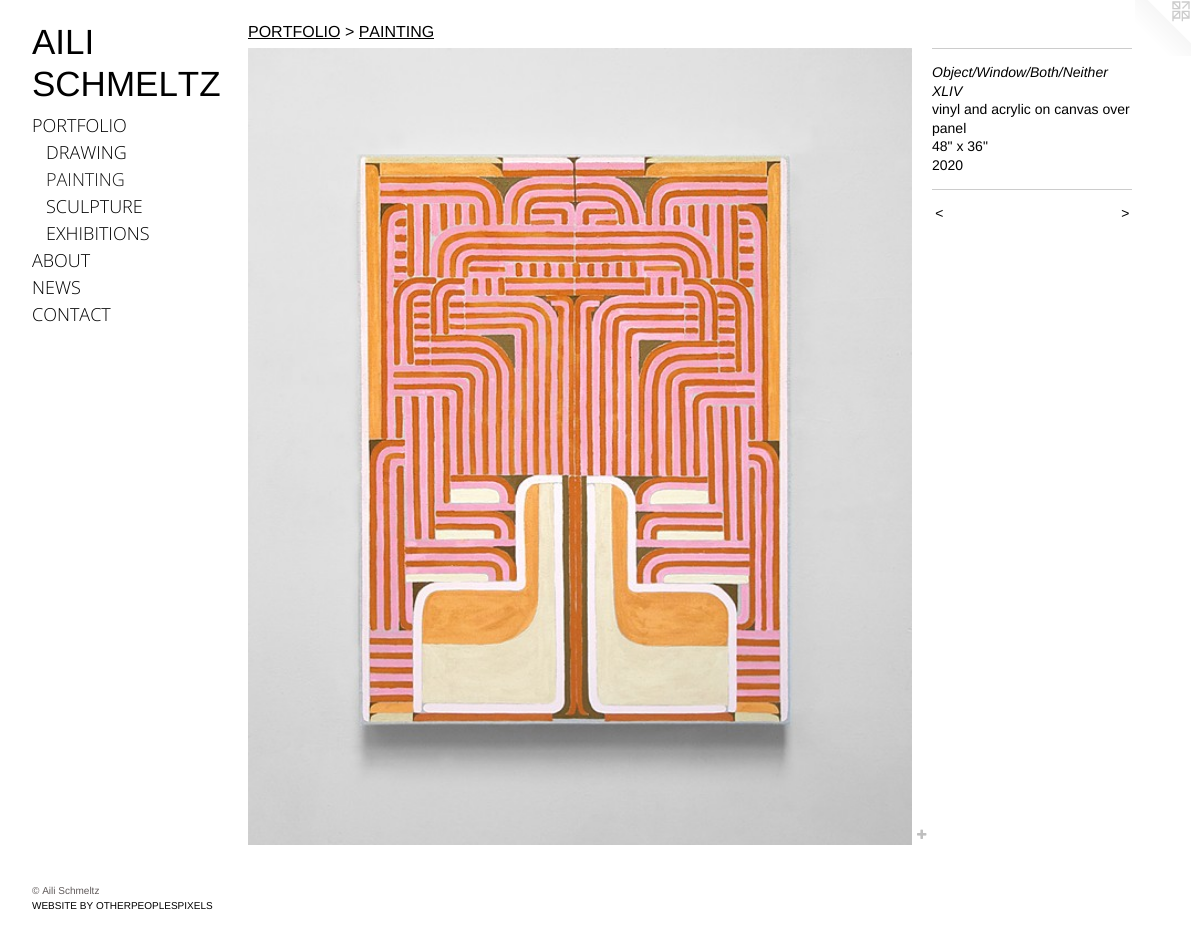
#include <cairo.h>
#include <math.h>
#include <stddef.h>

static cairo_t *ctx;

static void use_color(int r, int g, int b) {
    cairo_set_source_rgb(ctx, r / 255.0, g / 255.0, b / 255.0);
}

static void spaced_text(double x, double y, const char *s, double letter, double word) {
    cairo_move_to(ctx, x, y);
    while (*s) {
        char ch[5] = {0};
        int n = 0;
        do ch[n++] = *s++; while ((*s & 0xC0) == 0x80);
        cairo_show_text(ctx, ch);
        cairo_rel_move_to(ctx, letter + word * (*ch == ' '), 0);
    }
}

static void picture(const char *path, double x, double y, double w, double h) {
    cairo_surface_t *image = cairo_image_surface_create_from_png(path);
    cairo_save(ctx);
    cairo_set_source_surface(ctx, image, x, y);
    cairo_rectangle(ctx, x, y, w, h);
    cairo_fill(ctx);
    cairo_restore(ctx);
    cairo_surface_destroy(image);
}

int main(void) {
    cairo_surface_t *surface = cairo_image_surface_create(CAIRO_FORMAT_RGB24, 1191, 936);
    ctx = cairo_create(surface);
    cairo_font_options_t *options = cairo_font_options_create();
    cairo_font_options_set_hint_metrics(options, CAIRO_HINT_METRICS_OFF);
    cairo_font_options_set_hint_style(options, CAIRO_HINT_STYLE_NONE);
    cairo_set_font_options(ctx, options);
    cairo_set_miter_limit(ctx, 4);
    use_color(255, 255, 255);
    cairo_paint(ctx);
    cairo_select_font_face(ctx, "Liberation Sans", CAIRO_FONT_SLANT_NORMAL, CAIRO_FONT_WEIGHT_NORMAL);
    cairo_set_font_size(ctx, 35);
    use_color(0, 0, 0);
    cairo_move_to(ctx, 32, 54);
    cairo_show_text(ctx, "AILI");
    cairo_move_to(ctx, 32, 96);
    cairo_show_text(ctx, "SCHMELTZ");
    cairo_select_font_face(ctx, "Open Sans Light", CAIRO_FONT_SLANT_NORMAL, CAIRO_FONT_WEIGHT_NORMAL);
    cairo_set_font_size(ctx, 18);
    cairo_move_to(ctx, 32, 132);
    cairo_show_text(ctx, "PORTFOLIO");
    cairo_move_to(ctx, 46, 159);
    cairo_show_text(ctx, "DRAWING");
    use_color(26, 26, 26);
    cairo_move_to(ctx, 46, 186);
    cairo_show_text(ctx, "PAINTING");
    use_color(0, 0, 0);
    cairo_move_to(ctx, 46, 213);
    cairo_show_text(ctx, "SCULPTURE");
    cairo_move_to(ctx, 46, 240);
    cairo_show_text(ctx, "EXHIBITIONS");
    cairo_move_to(ctx, 32, 267);
    cairo_show_text(ctx, "ABOUT");
    cairo_move_to(ctx, 32, 294);
    cairo_show_text(ctx, "NEWS");
    cairo_move_to(ctx, 32, 321);
    cairo_show_text(ctx, "CONTACT");
    cairo_select_font_face(ctx, "Liberation Sans", CAIRO_FONT_SLANT_NORMAL, CAIRO_FONT_WEIGHT_NORMAL);
    cairo_set_font_size(ctx, 10);
    use_color(95, 89, 89);
    cairo_move_to(ctx, 32, 894);
    cairo_show_text(ctx, "© Aili Schmeltz");
    use_color(0, 0, 0);
    cairo_move_to(ctx, 32, 909);
    cairo_show_text(ctx, "WEBSITE BY OTHERPEOPLESPIXELS");
    cairo_set_font_size(ctx, 16);
    cairo_move_to(ctx, 248, 37);
    cairo_show_text(ctx, "PORTFOLIO > PAINTING");
    cairo_rectangle(ctx, 248, 38, 92, 1);
    cairo_fill(ctx);
    cairo_rectangle(ctx, 359, 38, 75, 1);
    cairo_fill(ctx);
    picture("img1.png", 248, 48, 664, 797);
    picture("img2.png", 917, 829, 10, 10);
    use_color(204, 204, 204);
    cairo_rectangle(ctx, 932, 48, 200, 1);
    cairo_fill(ctx);
    cairo_select_font_face(ctx, "Liberation Sans", CAIRO_FONT_SLANT_ITALIC, CAIRO_FONT_WEIGHT_NORMAL);
    cairo_set_font_size(ctx, 14);
    use_color(0, 0, 0);
    cairo_move_to(ctx, 932, 77);
    cairo_show_text(ctx, "Object/Window/Both/Neither");
    cairo_move_to(ctx, 932, 96);
    cairo_show_text(ctx, "XLIV");
    cairo_select_font_face(ctx, "Liberation Sans", CAIRO_FONT_SLANT_NORMAL, CAIRO_FONT_WEIGHT_NORMAL);
    cairo_move_to(ctx, 932, 114);
    cairo_show_text(ctx, "vinyl and acrylic on canvas over");
    cairo_move_to(ctx, 932, 133);
    cairo_show_text(ctx, "panel");
    cairo_move_to(ctx, 932, 151);
    cairo_show_text(ctx, "48\" x 36\"");
    cairo_move_to(ctx, 932, 170);
    cairo_show_text(ctx, "2020");
    use_color(204, 204, 204);
    cairo_rectangle(ctx, 932, 189, 200, 1);
    cairo_fill(ctx);
    cairo_select_font_face(ctx, "Liberation Sans", CAIRO_FONT_SLANT_ITALIC, CAIRO_FONT_WEIGHT_NORMAL);
    use_color(0, 0, 0);
    spaced_text(935, 218, "<", 1, 0);
    spaced_text(1121, 218, ">", 1, 0);
    picture("img3.png", 1135, 0, 56, 56);
    cairo_surface_write_to_png(surface, "result.png");
    cairo_font_options_destroy(options);
    cairo_destroy(ctx);
    cairo_surface_destroy(surface);
    return 0;
}
